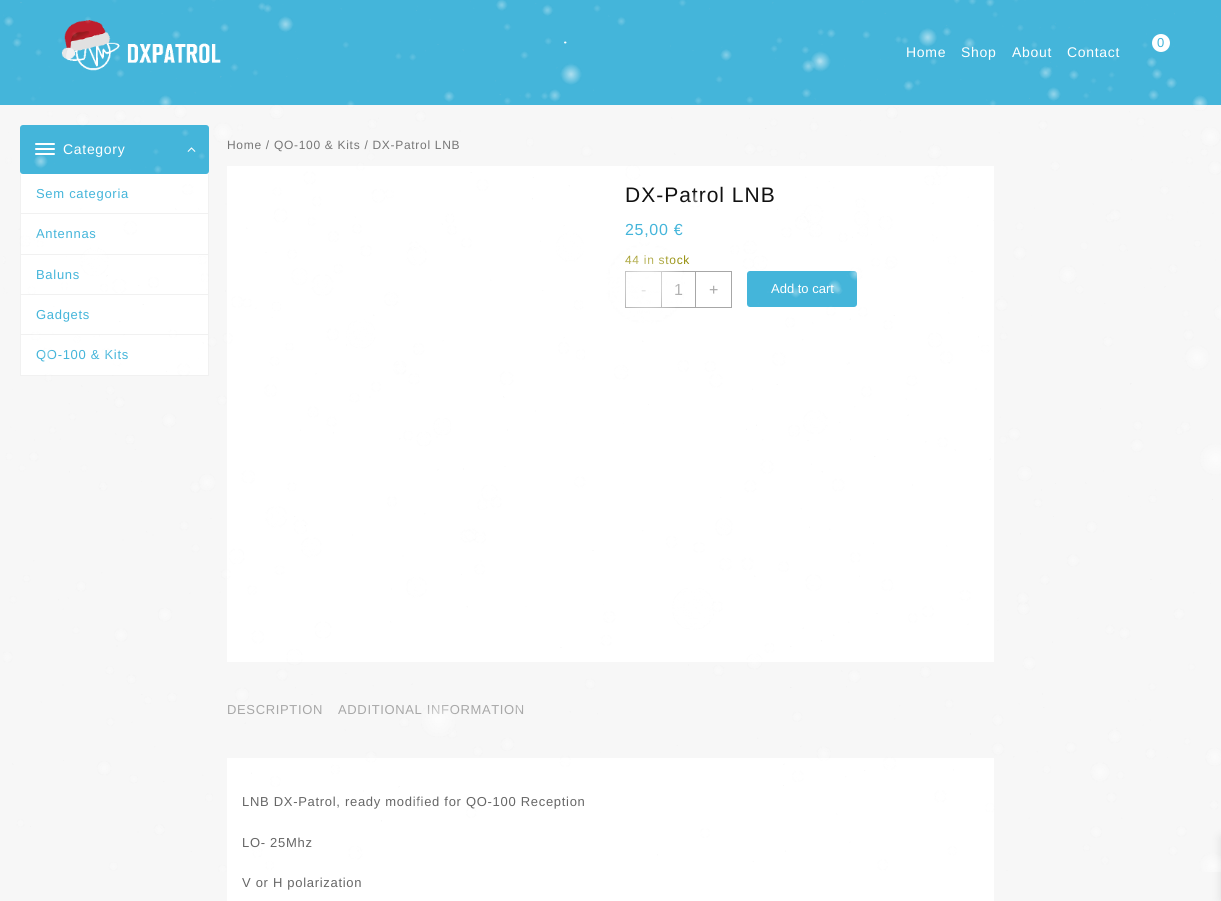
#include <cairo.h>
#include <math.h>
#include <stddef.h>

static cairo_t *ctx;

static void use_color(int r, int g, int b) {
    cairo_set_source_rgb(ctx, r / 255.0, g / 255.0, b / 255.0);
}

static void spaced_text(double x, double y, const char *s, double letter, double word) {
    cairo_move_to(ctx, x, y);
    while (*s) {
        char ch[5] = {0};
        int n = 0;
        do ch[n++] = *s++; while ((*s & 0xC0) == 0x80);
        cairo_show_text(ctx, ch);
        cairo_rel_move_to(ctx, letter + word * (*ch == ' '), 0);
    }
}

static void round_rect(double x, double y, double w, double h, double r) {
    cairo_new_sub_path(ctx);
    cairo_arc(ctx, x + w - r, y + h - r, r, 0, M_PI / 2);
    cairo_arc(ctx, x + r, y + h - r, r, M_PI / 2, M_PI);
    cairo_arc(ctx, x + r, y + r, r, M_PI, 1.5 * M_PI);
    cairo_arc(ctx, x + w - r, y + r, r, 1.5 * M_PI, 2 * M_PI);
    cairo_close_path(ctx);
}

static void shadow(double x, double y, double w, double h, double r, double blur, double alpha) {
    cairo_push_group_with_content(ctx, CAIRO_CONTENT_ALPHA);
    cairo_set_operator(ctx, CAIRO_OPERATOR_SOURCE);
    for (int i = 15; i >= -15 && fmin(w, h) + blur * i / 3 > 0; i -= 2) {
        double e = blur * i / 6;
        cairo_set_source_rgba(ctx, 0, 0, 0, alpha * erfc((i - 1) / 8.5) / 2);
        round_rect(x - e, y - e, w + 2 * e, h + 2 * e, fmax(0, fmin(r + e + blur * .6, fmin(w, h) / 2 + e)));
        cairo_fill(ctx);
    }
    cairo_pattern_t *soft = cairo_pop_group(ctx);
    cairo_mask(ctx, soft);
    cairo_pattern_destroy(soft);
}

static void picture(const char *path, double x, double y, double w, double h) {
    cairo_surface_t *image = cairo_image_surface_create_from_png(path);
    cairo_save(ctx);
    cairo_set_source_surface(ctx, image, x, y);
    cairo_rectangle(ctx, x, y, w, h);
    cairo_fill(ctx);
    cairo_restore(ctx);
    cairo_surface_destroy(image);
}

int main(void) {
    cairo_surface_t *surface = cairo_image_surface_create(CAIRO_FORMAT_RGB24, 1221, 901);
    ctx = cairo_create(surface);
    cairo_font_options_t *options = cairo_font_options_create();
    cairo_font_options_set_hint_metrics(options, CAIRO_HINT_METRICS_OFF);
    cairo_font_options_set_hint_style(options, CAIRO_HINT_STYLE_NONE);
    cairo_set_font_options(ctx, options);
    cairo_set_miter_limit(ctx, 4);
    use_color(247, 247, 247);
    cairo_paint(ctx);
    use_color(68, 181, 218);
    cairo_rectangle(ctx, 0, 0, 1221, 105);
    cairo_fill(ctx);
    picture("img2.png", 61, 20, 160, 51);
    cairo_new_path(ctx);
    cairo_move_to(ctx, 565, 42.5);
    cairo_line_to(ctx, 565.5, 42.5);
    use_color(255, 255, 255);
    cairo_set_line_width(ctx, 1.9);
    cairo_set_line_cap(ctx, CAIRO_LINE_CAP_ROUND);
    cairo_stroke(ctx);
    cairo_arc(ctx, 1161, 43, 9, 0, 2 * M_PI);
    cairo_fill(ctx);
    cairo_select_font_face(ctx, "Liberation Sans", CAIRO_FONT_SLANT_NORMAL, CAIRO_FONT_WEIGHT_NORMAL);
    cairo_set_font_size(ctx, 13);
    use_color(68, 181, 218);
    spaced_text(1157, 47, "0", 0.7, 0);
    cairo_set_font_size(ctx, 14);
    use_color(255, 255, 255);
    spaced_text(906, 57, "Home", 0.7, 0);
    spaced_text(961, 57, "Shop", 0.7, 0);
    spaced_text(1012, 57, "About", 0.7, 0);
    spaced_text(1067, 57, "Contact", 0.7, 0);
    use_color(68, 181, 218);
    round_rect(20, 125, 189, 49, 3);
    cairo_fill(ctx);
    use_color(255, 255, 255);
    round_rect(35, 143, 20, 2, 1);
    cairo_fill(ctx);
    round_rect(35, 148, 20, 2, 1);
    cairo_fill(ctx);
    round_rect(35, 153, 20, 2, 1);
    cairo_fill(ctx);
    spaced_text(63, 154, "Category", 0.7, 0);
    picture("img3.png", 187, 147, 9, 5);
    cairo_rectangle(ctx, 21, 174, 187, 201);
    cairo_fill(ctx);
    use_color(241, 241, 241);
    cairo_rectangle(ctx, 208, 174, 1, 202);
    cairo_fill(ctx);
    cairo_rectangle(ctx, 20, 375, 189, 1);
    cairo_fill(ctx);
    cairo_rectangle(ctx, 20, 174, 1, 202);
    cairo_fill(ctx);
    cairo_rectangle(ctx, 21, 213, 187, 1);
    cairo_fill(ctx);
    cairo_set_font_size(ctx, 13);
    use_color(68, 181, 218);
    spaced_text(36, 198, "Sem categoria", 0.7, 0);
    use_color(241, 241, 241);
    cairo_rectangle(ctx, 21, 254, 187, 1);
    cairo_fill(ctx);
    use_color(68, 181, 218);
    spaced_text(36, 238, "Antennas", 0.7, 0);
    use_color(241, 241, 241);
    cairo_rectangle(ctx, 21, 294, 187, 1);
    cairo_fill(ctx);
    use_color(68, 181, 218);
    spaced_text(36, 279, "Baluns", 0.7, 0);
    use_color(241, 241, 241);
    cairo_rectangle(ctx, 21, 334, 187, 1);
    cairo_fill(ctx);
    use_color(68, 181, 218);
    spaced_text(36, 319, "Gadgets", 0.7, 0);
    spaced_text(36, 359, "QO-100 & Kits", 0.7, 0);
    cairo_set_font_size(ctx, 12);
    use_color(118, 118, 118);
    spaced_text(227, 149, "Home / QO-100 & Kits / DX-Patrol LNB", 0.7, 0);
    use_color(255, 255, 255);
    cairo_rectangle(ctx, 227, 166, 767, 496);
    cairo_fill(ctx);
    cairo_set_font_size(ctx, 21);
    use_color(17, 17, 17);
    spaced_text(625, 202, "DX-Patrol LNB", 1, 0);
    cairo_set_font_size(ctx, 16);
    use_color(68, 181, 218);
    spaced_text(625, 235, "25,00 €", 0.7, 0);
    cairo_set_font_size(ctx, 12);
    use_color(149, 142, 9);
    spaced_text(625, 264, "44 in stock", 0.7, 0);
    cairo_rectangle(ctx, 625.5, 271.5, 106, 36);
    use_color(167, 167, 167);
    cairo_set_line_width(ctx, 1);
    cairo_set_line_cap(ctx, CAIRO_LINE_CAP_BUTT);
    cairo_stroke(ctx);
    cairo_set_font_size(ctx, 16);
    cairo_move_to(ctx, 641, 295);
    cairo_show_text(ctx, "-");
    cairo_rectangle(ctx, 695, 272, 1, 35);
    cairo_fill(ctx);
    cairo_rectangle(ctx, 661, 272, 1, 35);
    cairo_fill(ctx);
    cairo_move_to(ctx, 674, 295);
    cairo_show_text(ctx, "1");
    cairo_move_to(ctx, 709, 295);
    cairo_show_text(ctx, "+");
    use_color(68, 181, 218);
    round_rect(747, 271, 110, 36, 3);
    cairo_fill(ctx);
    cairo_set_font_size(ctx, 13);
    use_color(255, 255, 255);
    cairo_move_to(ctx, 771, 293);
    cairo_show_text(ctx, "Add to cart");
    use_color(167, 167, 167);
    spaced_text(227, 714, "DESCRIPTION", 0.65, 0);
    spaced_text(338, 714, "ADDITIONAL INFORMATION", 0.65, 0);
    use_color(255, 255, 255);
    cairo_rectangle(ctx, 227, 758, 767, 143);
    cairo_fill(ctx);
    use_color(102, 102, 102);
    spaced_text(242, 806, "LNB DX-Patrol, ready modified for QO-100 Reception", 0.7, 0);
    spaced_text(242, 847, "LO- 25Mhz", 0.7, 0);
    use_color(0, 0, 0);
    shadow(1221, 837, 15, 63, 0, 5, 0.1);
    picture("img1.png", 3, 0, 1218, 872);
    use_color(102, 102, 102);
    spaced_text(242, 887, "V or H polarization", 0.7, 0);
    cairo_surface_write_to_png(surface, "result.png");
    cairo_font_options_destroy(options);
    cairo_destroy(ctx);
    cairo_surface_destroy(surface);
    return 0;
}
